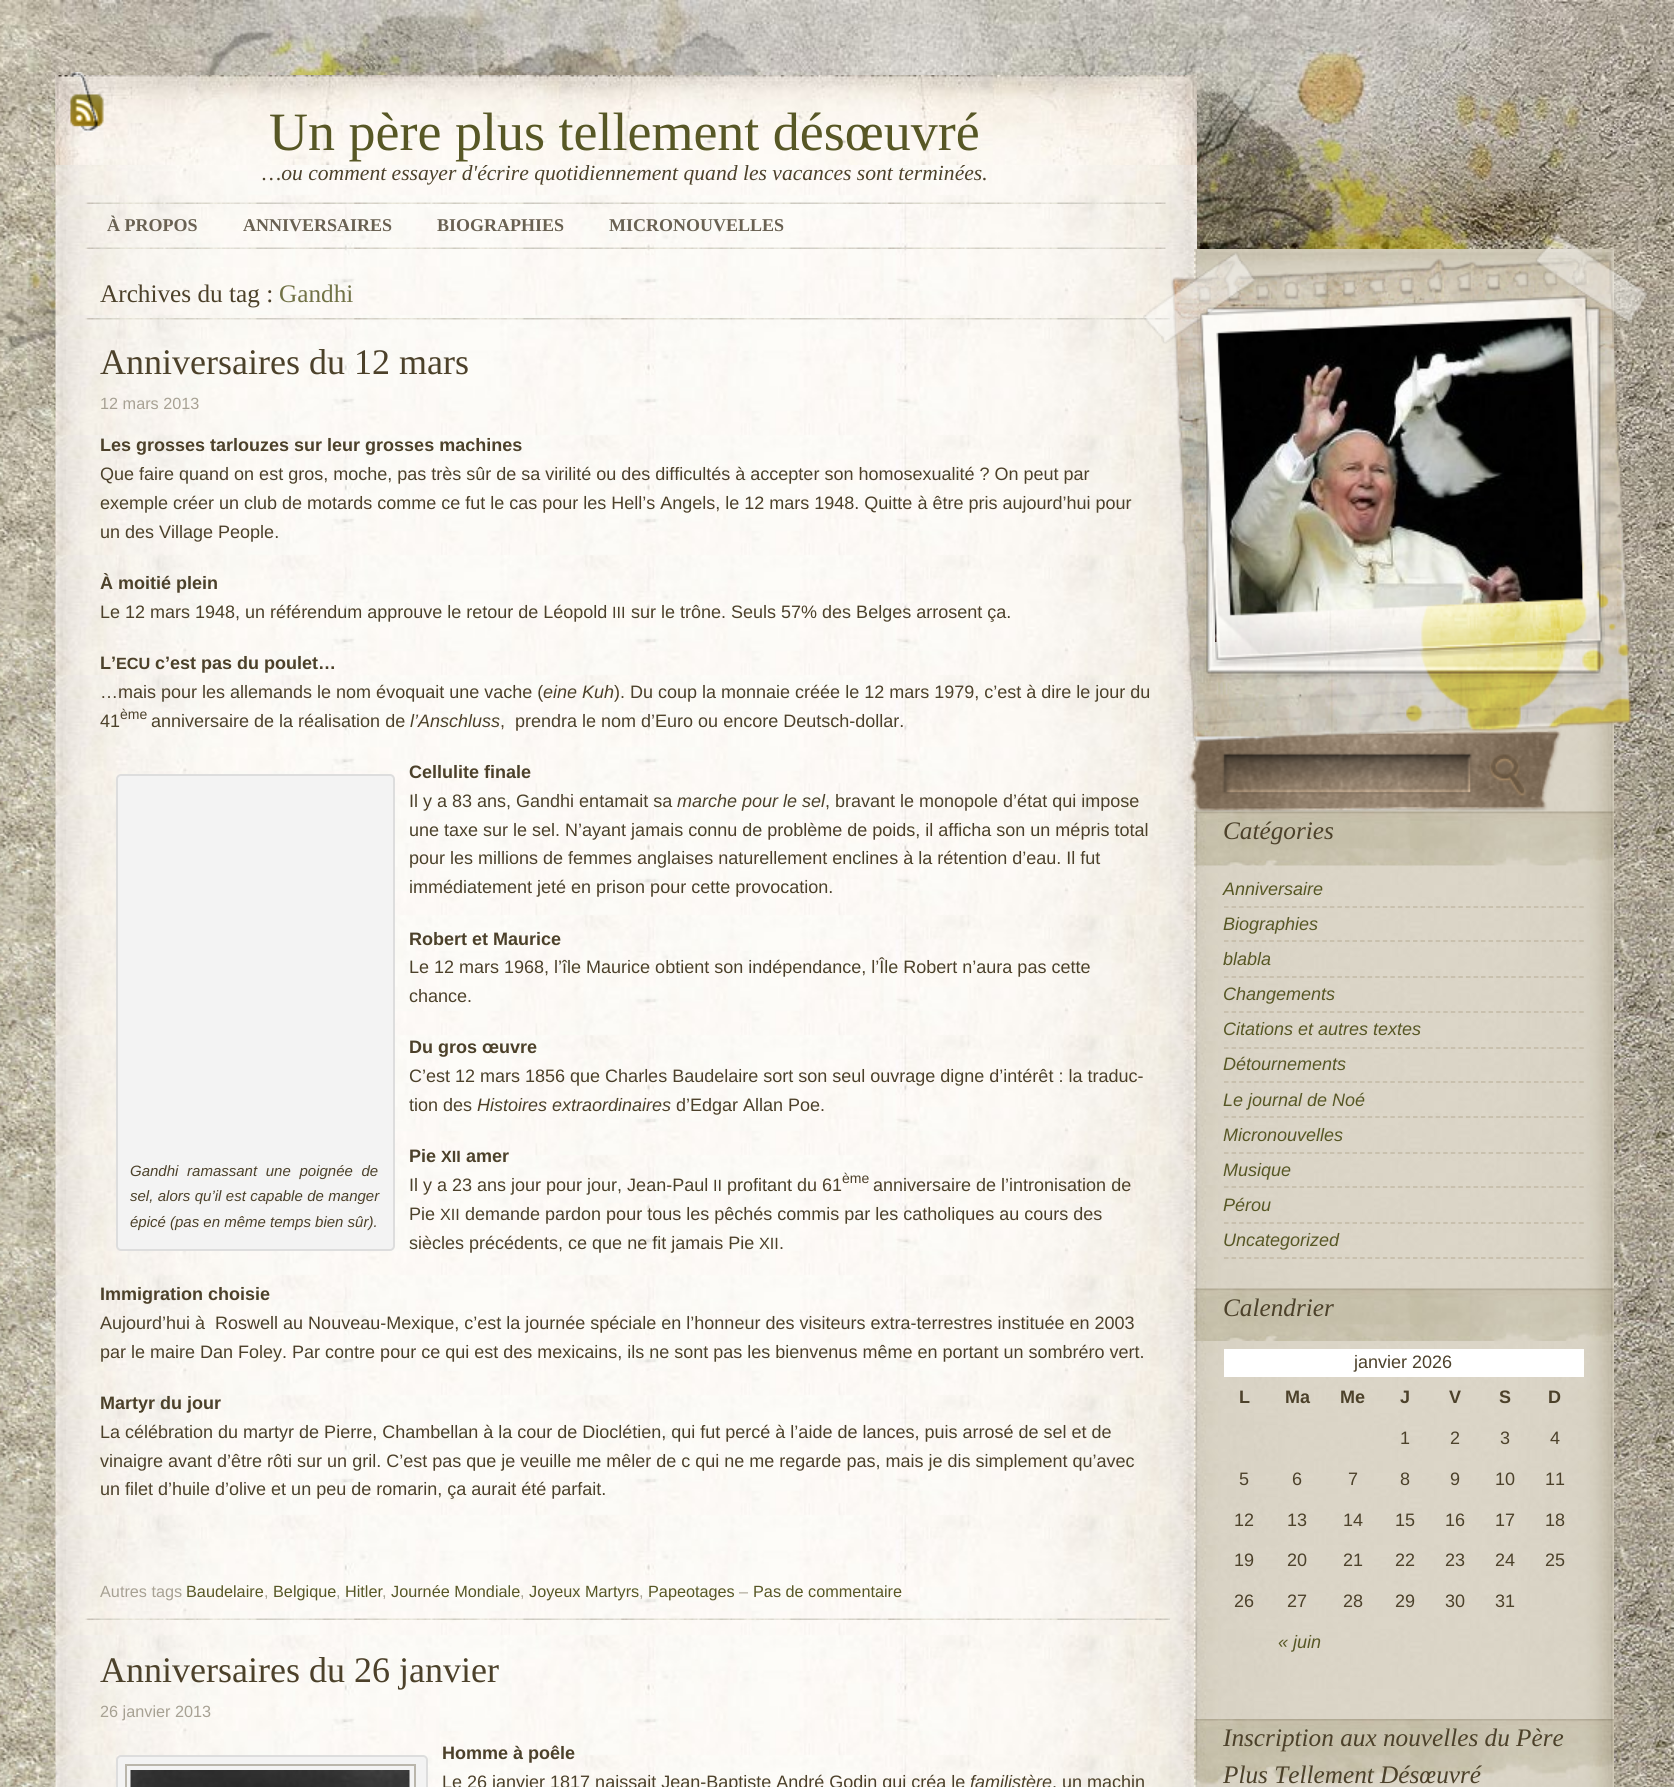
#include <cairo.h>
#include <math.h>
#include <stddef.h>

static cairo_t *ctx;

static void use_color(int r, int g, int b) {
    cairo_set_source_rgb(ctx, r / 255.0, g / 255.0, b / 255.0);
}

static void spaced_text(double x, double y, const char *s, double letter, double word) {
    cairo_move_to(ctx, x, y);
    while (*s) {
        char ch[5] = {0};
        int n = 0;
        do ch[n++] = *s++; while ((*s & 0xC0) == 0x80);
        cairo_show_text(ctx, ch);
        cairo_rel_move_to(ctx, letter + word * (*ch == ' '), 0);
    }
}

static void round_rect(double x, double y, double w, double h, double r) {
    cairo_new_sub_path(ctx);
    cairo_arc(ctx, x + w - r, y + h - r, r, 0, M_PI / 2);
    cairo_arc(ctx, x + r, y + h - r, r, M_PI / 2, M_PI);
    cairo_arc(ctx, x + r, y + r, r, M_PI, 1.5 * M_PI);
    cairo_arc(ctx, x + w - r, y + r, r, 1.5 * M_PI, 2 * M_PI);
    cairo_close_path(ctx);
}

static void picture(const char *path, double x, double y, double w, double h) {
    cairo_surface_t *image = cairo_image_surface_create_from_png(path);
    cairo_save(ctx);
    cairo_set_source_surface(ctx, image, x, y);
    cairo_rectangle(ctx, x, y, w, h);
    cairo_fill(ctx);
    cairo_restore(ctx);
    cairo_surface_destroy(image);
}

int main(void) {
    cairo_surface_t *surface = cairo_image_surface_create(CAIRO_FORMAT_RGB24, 1674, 1787);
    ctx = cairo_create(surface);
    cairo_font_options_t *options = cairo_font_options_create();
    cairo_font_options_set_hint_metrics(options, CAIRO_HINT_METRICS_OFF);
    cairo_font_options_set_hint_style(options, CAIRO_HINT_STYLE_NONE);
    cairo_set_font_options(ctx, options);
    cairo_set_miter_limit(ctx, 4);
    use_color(255, 255, 255);
    cairo_paint(ctx);
    picture("img1.png", 0, 609, 1674, 1178);
    picture("img2.png", 0, 0, 1674, 609);
    picture("img3.png", 55, 75, 1142, 1712);
    picture("img4.png", 55, 75, 1142, 90);
    picture("img5.png", 70, 72, 34, 60);
    cairo_select_font_face(ctx, "Liberation Serif", CAIRO_FONT_SLANT_NORMAL, CAIRO_FONT_WEIGHT_NORMAL);
    cairo_set_font_size(ctx, 54);
    use_color(87, 87, 37);
    cairo_move_to(ctx, 269, 150);
    cairo_show_text(ctx, "Un père plus tellement désœuvré");
    cairo_select_font_face(ctx, "Liberation Serif", CAIRO_FONT_SLANT_ITALIC, CAIRO_FONT_WEIGHT_NORMAL);
    cairo_set_font_size(ctx, 21.6);
    use_color(76, 65, 42);
    cairo_move_to(ctx, 262, 180);
    cairo_show_text(ctx, "…ou comment essayer d'écrire quotidiennement quand les vacances sont terminées.");
    picture("img6.png", 85, 202, 1081, 2);
    picture("img7.png", 85, 247, 1081, 2);
    cairo_select_font_face(ctx, "Liberation Serif", CAIRO_FONT_SLANT_NORMAL, CAIRO_FONT_WEIGHT_BOLD);
    cairo_set_font_size(ctx, 18);
    use_color(105, 97, 82);
    cairo_move_to(ctx, 107, 231);
    cairo_show_text(ctx, "À PROPOS");
    cairo_move_to(ctx, 243, 231);
    cairo_show_text(ctx, "ANNIVERSAIRES");
    cairo_move_to(ctx, 437, 231);
    cairo_show_text(ctx, "BIOGRAPHIES");
    cairo_move_to(ctx, 609, 231);
    cairo_show_text(ctx, "MICRONOUVELLES");
    cairo_select_font_face(ctx, "Liberation Serif", CAIRO_FONT_SLANT_NORMAL, CAIRO_FONT_WEIGHT_NORMAL);
    cairo_set_font_size(ctx, 25.25);
    use_color(76, 65, 42);
    cairo_move_to(ctx, 100, 302);
    cairo_show_text(ctx, "Archives du tag :");
    use_color(113, 114, 70);
    cairo_move_to(ctx, 279, 302);
    cairo_show_text(ctx, "Gandhi");
    picture("img8.png", 85, 318, 1085, 2);
    picture("img9.png", 85, 1618, 1085, 2);
    cairo_set_font_size(ctx, 36);
    use_color(76, 65, 42);
    cairo_move_to(ctx, 100, 374);
    cairo_show_text(ctx, "Anniversaires du 12 mars");
    cairo_select_font_face(ctx, "Liberation Sans", CAIRO_FONT_SLANT_NORMAL, CAIRO_FONT_WEIGHT_NORMAL);
    cairo_set_font_size(ctx, 16.25);
    use_color(167, 161, 147);
    cairo_move_to(ctx, 100, 409);
    cairo_show_text(ctx, "12 mars 2013");
    cairo_select_font_face(ctx, "Liberation Sans", CAIRO_FONT_SLANT_NORMAL, CAIRO_FONT_WEIGHT_BOLD);
    cairo_set_font_size(ctx, 18);
    use_color(76, 65, 42);
    cairo_move_to(ctx, 100, 451);
    cairo_show_text(ctx, "Les grosses tarlouzes sur leur grosses machines");
    cairo_select_font_face(ctx, "Liberation Sans", CAIRO_FONT_SLANT_NORMAL, CAIRO_FONT_WEIGHT_NORMAL);
    cairo_move_to(ctx, 100, 480);
    cairo_show_text(ctx, "Que faire quand on est gros, moche, pas très sûr de sa virilité ou des difficultés à accepter son homosexualité ? On peut par");
    cairo_move_to(ctx, 100, 509);
    cairo_show_text(ctx, "exemple créer un club de motards comme ce fut le cas pour les Hell’s Angels, le 12 mars 1948. Quitte à être pris aujourd’hui pour");
    cairo_move_to(ctx, 100, 538);
    cairo_show_text(ctx, "un des Village People.");
    cairo_select_font_face(ctx, "Liberation Sans", CAIRO_FONT_SLANT_NORMAL, CAIRO_FONT_WEIGHT_BOLD);
    cairo_move_to(ctx, 100, 589);
    cairo_show_text(ctx, "À moitié plein");
    cairo_select_font_face(ctx, "Liberation Sans", CAIRO_FONT_SLANT_NORMAL, CAIRO_FONT_WEIGHT_NORMAL);
    cairo_move_to(ctx, 100, 618);
    cairo_show_text(ctx, "Le 12 mars 1948, un référendum approuve le retour de Léopold");
    cairo_set_font_size(ctx, 16.25);
    cairo_move_to(ctx, 612, 618);
    cairo_show_text(ctx, "III");
    cairo_set_font_size(ctx, 18);
    cairo_move_to(ctx, 631, 618);
    cairo_show_text(ctx, "sur le trône. Seuls 57% des Belges arrosent ça.");
    cairo_select_font_face(ctx, "Liberation Sans", CAIRO_FONT_SLANT_NORMAL, CAIRO_FONT_WEIGHT_BOLD);
    cairo_move_to(ctx, 100, 669);
    cairo_show_text(ctx, "L’");
    cairo_set_font_size(ctx, 16.25);
    cairo_move_to(ctx, 116, 669);
    cairo_show_text(ctx, "ECU");
    cairo_set_font_size(ctx, 18);
    cairo_move_to(ctx, 155, 669);
    cairo_show_text(ctx, "c’est pas du poulet…");
    cairo_select_font_face(ctx, "Liberation Sans", CAIRO_FONT_SLANT_NORMAL, CAIRO_FONT_WEIGHT_NORMAL);
    cairo_move_to(ctx, 100, 698);
    cairo_show_text(ctx, "…mais pour les allemands le nom évoquait une vache (");
    cairo_select_font_face(ctx, "Liberation Sans", CAIRO_FONT_SLANT_ITALIC, CAIRO_FONT_WEIGHT_NORMAL);
    cairo_move_to(ctx, 543, 698);
    cairo_show_text(ctx, "eine Kuh");
    cairo_select_font_face(ctx, "Liberation Sans", CAIRO_FONT_SLANT_NORMAL, CAIRO_FONT_WEIGHT_NORMAL);
    cairo_move_to(ctx, 614, 698);
    cairo_show_text(ctx, "). Du coup la monnaie créée le 12 mars 1979, c’est à dire le jour du");
    cairo_move_to(ctx, 100, 727);
    cairo_show_text(ctx, "41");
    cairo_set_font_size(ctx, 14);
    cairo_move_to(ctx, 120, 719);
    cairo_show_text(ctx, "ème");
    cairo_set_font_size(ctx, 18);
    cairo_move_to(ctx, 151, 727);
    cairo_show_text(ctx, "anniversaire de la réalisation de");
    cairo_select_font_face(ctx, "Liberation Sans", CAIRO_FONT_SLANT_ITALIC, CAIRO_FONT_WEIGHT_NORMAL);
    cairo_move_to(ctx, 410, 727);
    cairo_show_text(ctx, "l’Anschluss");
    cairo_select_font_face(ctx, "Liberation Sans", CAIRO_FONT_SLANT_NORMAL, CAIRO_FONT_WEIGHT_NORMAL);
    cairo_move_to(ctx, 500, 727);
    cairo_show_text(ctx, ",  prendra le nom d’Euro ou encore Deutsch-dollar.");
    cairo_select_font_face(ctx, "Liberation Sans", CAIRO_FONT_SLANT_NORMAL, CAIRO_FONT_WEIGHT_BOLD);
    cairo_move_to(ctx, 409, 778);
    cairo_show_text(ctx, "Cellulite finale");
    cairo_select_font_face(ctx, "Liberation Sans", CAIRO_FONT_SLANT_NORMAL, CAIRO_FONT_WEIGHT_NORMAL);
    cairo_move_to(ctx, 409, 807);
    cairo_show_text(ctx, "Il y a 83 ans, Gandhi entamait sa");
    cairo_select_font_face(ctx, "Liberation Sans", CAIRO_FONT_SLANT_ITALIC, CAIRO_FONT_WEIGHT_NORMAL);
    cairo_move_to(ctx, 677, 807);
    cairo_show_text(ctx, "marche pour le sel");
    cairo_select_font_face(ctx, "Liberation Sans", CAIRO_FONT_SLANT_NORMAL, CAIRO_FONT_WEIGHT_NORMAL);
    cairo_move_to(ctx, 825, 807);
    cairo_show_text(ctx, ", bravant le monopole d’état qui impose");
    cairo_move_to(ctx, 409, 836);
    cairo_show_text(ctx, "une taxe sur le sel. N’ayant jamais connu de problème de poids, il afficha son un mépris total");
    cairo_move_to(ctx, 409, 864);
    cairo_show_text(ctx, "pour les millions de femmes anglaises naturellement enclines à la rétention d’eau. Il fut");
    cairo_move_to(ctx, 409, 893);
    cairo_show_text(ctx, "immédiatement jeté en prison pour cette provocation.");
    cairo_select_font_face(ctx, "Liberation Sans", CAIRO_FONT_SLANT_NORMAL, CAIRO_FONT_WEIGHT_BOLD);
    cairo_move_to(ctx, 409, 945);
    cairo_show_text(ctx, "Robert et Maurice");
    cairo_select_font_face(ctx, "Liberation Sans", CAIRO_FONT_SLANT_NORMAL, CAIRO_FONT_WEIGHT_NORMAL);
    cairo_move_to(ctx, 409, 973);
    cairo_show_text(ctx, "Le 12 mars 1968, l’île Maurice obtient son indépendance, l’Île Robert n’aura pas cette");
    cairo_move_to(ctx, 409, 1002);
    cairo_show_text(ctx, "chance.");
    cairo_select_font_face(ctx, "Liberation Sans", CAIRO_FONT_SLANT_NORMAL, CAIRO_FONT_WEIGHT_BOLD);
    cairo_move_to(ctx, 409, 1053);
    cairo_show_text(ctx, "Du gros œuvre");
    cairo_select_font_face(ctx, "Liberation Sans", CAIRO_FONT_SLANT_NORMAL, CAIRO_FONT_WEIGHT_NORMAL);
    cairo_move_to(ctx, 409, 1082);
    cairo_show_text(ctx, "C’est 12 mars 1856 que Charles Baudelaire sort son seul ouvrage digne d’intérêt : la traduc-");
    cairo_move_to(ctx, 409, 1111);
    cairo_show_text(ctx, "tion des");
    cairo_select_font_face(ctx, "Liberation Sans", CAIRO_FONT_SLANT_ITALIC, CAIRO_FONT_WEIGHT_NORMAL);
    cairo_move_to(ctx, 477, 1111);
    cairo_show_text(ctx, "Histoires extraordinaires");
    cairo_select_font_face(ctx, "Liberation Sans", CAIRO_FONT_SLANT_NORMAL, CAIRO_FONT_WEIGHT_NORMAL);
    cairo_move_to(ctx, 676, 1111);
    cairo_show_text(ctx, "d’Edgar Allan Poe.");
    use_color(243, 243, 243);
    round_rect(117, 775, 277, 475, 4);
    cairo_fill_preserve(ctx);
    use_color(221, 221, 221);
    cairo_stroke(ctx);
    cairo_select_font_face(ctx, "Liberation Sans", CAIRO_FONT_SLANT_ITALIC, CAIRO_FONT_WEIGHT_NORMAL);
    cairo_set_font_size(ctx, 15);
    use_color(76, 65, 42);
    spaced_text(130, 1176, "Gandhi ramassant une poignée de", 0, 4.5);
    spaced_text(130, 1201, "sel, alors qu’il est capable de manger", 0, 0.25);
    cairo_move_to(ctx, 130, 1227);
    cairo_show_text(ctx, "épicé (pas en même temps bien sûr).");
    cairo_select_font_face(ctx, "Liberation Sans", CAIRO_FONT_SLANT_NORMAL, CAIRO_FONT_WEIGHT_BOLD);
    cairo_set_font_size(ctx, 18);
    cairo_move_to(ctx, 409, 1162);
    cairo_show_text(ctx, "Pie");
    cairo_set_font_size(ctx, 16.25);
    cairo_move_to(ctx, 441, 1162);
    cairo_show_text(ctx, "XII");
    cairo_set_font_size(ctx, 18);
    cairo_move_to(ctx, 466, 1162);
    cairo_show_text(ctx, "amer");
    cairo_select_font_face(ctx, "Liberation Sans", CAIRO_FONT_SLANT_NORMAL, CAIRO_FONT_WEIGHT_NORMAL);
    cairo_move_to(ctx, 409, 1191);
    cairo_show_text(ctx, "Il y a 23 ans jour pour jour, Jean-Paul");
    cairo_set_font_size(ctx, 16.25);
    cairo_move_to(ctx, 713, 1191);
    cairo_show_text(ctx, "II");
    cairo_set_font_size(ctx, 18);
    cairo_move_to(ctx, 727, 1191);
    cairo_show_text(ctx, "profitant du 61");
    cairo_set_font_size(ctx, 14);
    cairo_move_to(ctx, 842, 1183);
    cairo_show_text(ctx, "ème");
    cairo_set_font_size(ctx, 18);
    cairo_move_to(ctx, 873, 1191);
    cairo_show_text(ctx, "anniversaire de l’intronisation de");
    cairo_move_to(ctx, 409, 1220);
    cairo_show_text(ctx, "Pie");
    cairo_set_font_size(ctx, 16.25);
    cairo_move_to(ctx, 440, 1220);
    cairo_show_text(ctx, "XII");
    cairo_set_font_size(ctx, 18);
    cairo_move_to(ctx, 465, 1220);
    cairo_show_text(ctx, "demande pardon pour tous les pêchés commis par les catholiques au cours des");
    cairo_move_to(ctx, 409, 1249);
    cairo_show_text(ctx, "siècles précédents, ce que ne fit jamais Pie");
    cairo_set_font_size(ctx, 16.25);
    cairo_move_to(ctx, 759, 1249);
    cairo_show_text(ctx, "XII");
    cairo_set_font_size(ctx, 18);
    cairo_move_to(ctx, 779, 1249);
    cairo_show_text(ctx, ".");
    cairo_select_font_face(ctx, "Liberation Sans", CAIRO_FONT_SLANT_NORMAL, CAIRO_FONT_WEIGHT_BOLD);
    cairo_move_to(ctx, 100, 1300);
    cairo_show_text(ctx, "Immigration choisie");
    cairo_select_font_face(ctx, "Liberation Sans", CAIRO_FONT_SLANT_NORMAL, CAIRO_FONT_WEIGHT_NORMAL);
    cairo_move_to(ctx, 100, 1329);
    cairo_show_text(ctx, "Aujourd’hui à  Roswell au Nouveau-Mexique, c’est la journée spéciale en l’honneur des visiteurs extra-terrestres instituée en 2003");
    cairo_move_to(ctx, 100, 1358);
    cairo_show_text(ctx, "par le maire Dan Foley. Par contre pour ce qui est des mexicains, ils ne sont pas les bienvenus même en portant un sombréro vert.");
    cairo_select_font_face(ctx, "Liberation Sans", CAIRO_FONT_SLANT_NORMAL, CAIRO_FONT_WEIGHT_BOLD);
    cairo_move_to(ctx, 100, 1409);
    cairo_show_text(ctx, "Martyr du jour");
    cairo_select_font_face(ctx, "Liberation Sans", CAIRO_FONT_SLANT_NORMAL, CAIRO_FONT_WEIGHT_NORMAL);
    cairo_move_to(ctx, 100, 1438);
    cairo_show_text(ctx, "La célébration du martyr de Pierre, Chambellan à la cour de Dioclétien, qui fut percé à l’aide de lances, puis arrosé de sel et de");
    cairo_move_to(ctx, 100, 1467);
    cairo_show_text(ctx, "vinaigre avant d’être rôti sur un gril. C’est pas que je veuille me mêler de c qui ne me regarde pas, mais je dis simplement qu’avec");
    cairo_move_to(ctx, 100, 1495);
    cairo_show_text(ctx, "un filet d’huile d’olive et un peu de romarin, ça aurait été parfait.");
    cairo_set_font_size(ctx, 16.25);
    use_color(167, 161, 147);
    cairo_move_to(ctx, 100, 1597);
    cairo_show_text(ctx, "Autres tags");
    use_color(87, 87, 37);
    cairo_move_to(ctx, 186, 1597);
    cairo_show_text(ctx, "Baudelaire");
    cairo_move_to(ctx, 273, 1597);
    cairo_show_text(ctx, "Belgique");
    cairo_move_to(ctx, 345, 1597);
    cairo_show_text(ctx, "Hitler");
    cairo_move_to(ctx, 391, 1597);
    cairo_show_text(ctx, "Journée Mondiale");
    cairo_move_to(ctx, 529, 1597);
    cairo_show_text(ctx, "Joyeux Martyrs");
    cairo_move_to(ctx, 648, 1597);
    cairo_show_text(ctx, "Papeotages");
    use_color(167, 161, 147);
    cairo_move_to(ctx, 739, 1597);
    cairo_show_text(ctx, "–");
    use_color(87, 87, 37);
    cairo_move_to(ctx, 753, 1597);
    cairo_show_text(ctx, "Pas de commentaire");
    use_color(167, 161, 147);
    cairo_move_to(ctx, 264, 1597);
    cairo_show_text(ctx, ",");
    cairo_move_to(ctx, 336, 1597);
    cairo_show_text(ctx, ",");
    cairo_move_to(ctx, 382, 1597);
    cairo_show_text(ctx, ",");
    cairo_move_to(ctx, 520, 1597);
    cairo_show_text(ctx, ",");
    cairo_move_to(ctx, 639, 1597);
    cairo_show_text(ctx, ",");
    cairo_select_font_face(ctx, "Liberation Serif", CAIRO_FONT_SLANT_NORMAL, CAIRO_FONT_WEIGHT_NORMAL);
    cairo_set_font_size(ctx, 36);
    use_color(76, 65, 42);
    cairo_move_to(ctx, 100, 1682);
    cairo_show_text(ctx, "Anniversaires du 26 janvier");
    cairo_select_font_face(ctx, "Liberation Sans", CAIRO_FONT_SLANT_NORMAL, CAIRO_FONT_WEIGHT_NORMAL);
    cairo_set_font_size(ctx, 16.25);
    use_color(167, 161, 147);
    cairo_move_to(ctx, 100, 1717);
    cairo_show_text(ctx, "26 janvier 2013");
    use_color(243, 243, 243);
    round_rect(117, 1756, 310, 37, 4);
    cairo_fill_preserve(ctx);
    use_color(221, 221, 221);
    cairo_stroke(ctx);
    cairo_rectangle(ctx, 126, 1765, 289, 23);
    use_color(186, 182, 171);
    cairo_stroke(ctx);
    picture("img10.png", 130, 1770, 280, 17);
    cairo_select_font_face(ctx, "Liberation Sans", CAIRO_FONT_SLANT_NORMAL, CAIRO_FONT_WEIGHT_BOLD);
    cairo_set_font_size(ctx, 18);
    use_color(76, 65, 42);
    cairo_move_to(ctx, 442, 1759);
    cairo_show_text(ctx, "Homme à poêle");
    cairo_select_font_face(ctx, "Liberation Sans", CAIRO_FONT_SLANT_NORMAL, CAIRO_FONT_WEIGHT_NORMAL);
    cairo_move_to(ctx, 442, 1788);
    cairo_show_text(ctx, "Le 26 janvier 1817 naissait Jean-Baptiste André Godin qui créa le");
    cairo_select_font_face(ctx, "Liberation Sans", CAIRO_FONT_SLANT_ITALIC, CAIRO_FONT_WEIGHT_NORMAL);
    cairo_move_to(ctx, 970, 1788);
    cairo_show_text(ctx, "familistère");
    cairo_select_font_face(ctx, "Liberation Sans", CAIRO_FONT_SLANT_NORMAL, CAIRO_FONT_WEIGHT_NORMAL);
    cairo_move_to(ctx, 1052, 1788);
    cairo_show_text(ctx, ", un machin");
    picture("img11.png", 1194, 339, 420, 1380);
    picture("img12.png", 1194, 249, 420, 90);
    picture("img16.png", 1188, 730, 373, 82);
    picture("img13.png", 1143, 234, 505, 510);
    picture("img15.png", 1215, 316, 368, 326);
    picture("img14.png", 1197, 295, 408, 371);
    picture("img17.png", 1489, 754, 37, 43);
    picture("img18.png", 1194, 811, 420, 55);
    cairo_select_font_face(ctx, "Liberation Serif", CAIRO_FONT_SLANT_ITALIC, CAIRO_FONT_WEIGHT_NORMAL);
    cairo_set_font_size(ctx, 25.25);
    cairo_move_to(ctx, 1223, 839);
    cairo_show_text(ctx, "Catégories");
    cairo_new_path(ctx);
    cairo_move_to(ctx, 1224, 907);
    cairo_line_to(ctx, 1584, 907);
    use_color(194, 185, 165);
    cairo_set_line_width(ctx, 1.5);
    cairo_set_dash(ctx, (double[]){4.5, 3.06}, 2, 0);
    cairo_stroke(ctx);
    cairo_select_font_face(ctx, "Liberation Sans", CAIRO_FONT_SLANT_ITALIC, CAIRO_FONT_WEIGHT_NORMAL);
    cairo_set_font_size(ctx, 18);
    use_color(87, 87, 37);
    cairo_move_to(ctx, 1223, 895);
    cairo_show_text(ctx, "Anniversaire");
    cairo_new_path(ctx);
    cairo_move_to(ctx, 1224, 941);
    cairo_line_to(ctx, 1584, 941);
    use_color(194, 185, 165);
    cairo_stroke(ctx);
    use_color(87, 87, 37);
    cairo_move_to(ctx, 1223, 930);
    cairo_show_text(ctx, "Biographies");
    cairo_new_path(ctx);
    cairo_move_to(ctx, 1224, 977);
    cairo_line_to(ctx, 1584, 977);
    use_color(194, 185, 165);
    cairo_stroke(ctx);
    use_color(87, 87, 37);
    cairo_move_to(ctx, 1223, 965);
    cairo_show_text(ctx, "blabla");
    cairo_new_path(ctx);
    cairo_move_to(ctx, 1224, 1012);
    cairo_line_to(ctx, 1584, 1012);
    use_color(194, 185, 165);
    cairo_stroke(ctx);
    use_color(87, 87, 37);
    cairo_move_to(ctx, 1223, 1000);
    cairo_show_text(ctx, "Changements");
    cairo_new_path(ctx);
    cairo_move_to(ctx, 1224, 1048);
    cairo_line_to(ctx, 1584, 1048);
    use_color(194, 185, 165);
    cairo_stroke(ctx);
    use_color(87, 87, 37);
    cairo_move_to(ctx, 1223, 1035);
    cairo_show_text(ctx, "Citations et autres textes");
    cairo_new_path(ctx);
    cairo_move_to(ctx, 1224, 1082);
    cairo_line_to(ctx, 1584, 1082);
    use_color(194, 185, 165);
    cairo_stroke(ctx);
    use_color(87, 87, 37);
    cairo_move_to(ctx, 1223, 1070);
    cairo_show_text(ctx, "Détournements");
    cairo_new_path(ctx);
    cairo_move_to(ctx, 1224, 1117);
    cairo_line_to(ctx, 1584, 1117);
    use_color(194, 185, 165);
    cairo_stroke(ctx);
    use_color(87, 87, 37);
    cairo_move_to(ctx, 1223, 1106);
    cairo_show_text(ctx, "Le journal de Noé");
    cairo_new_path(ctx);
    cairo_move_to(ctx, 1224, 1153);
    cairo_line_to(ctx, 1584, 1153);
    use_color(194, 185, 165);
    cairo_stroke(ctx);
    use_color(87, 87, 37);
    cairo_move_to(ctx, 1223, 1141);
    cairo_show_text(ctx, "Micronouvelles");
    cairo_new_path(ctx);
    cairo_move_to(ctx, 1224, 1187);
    cairo_line_to(ctx, 1584, 1187);
    use_color(194, 185, 165);
    cairo_stroke(ctx);
    use_color(87, 87, 37);
    cairo_move_to(ctx, 1223, 1176);
    cairo_show_text(ctx, "Musique");
    cairo_new_path(ctx);
    cairo_move_to(ctx, 1224, 1223);
    cairo_line_to(ctx, 1584, 1223);
    use_color(194, 185, 165);
    cairo_stroke(ctx);
    use_color(87, 87, 37);
    cairo_move_to(ctx, 1223, 1211);
    cairo_show_text(ctx, "Pérou");
    cairo_new_path(ctx);
    cairo_move_to(ctx, 1224, 1258);
    cairo_line_to(ctx, 1584, 1258);
    use_color(194, 185, 165);
    cairo_stroke(ctx);
    use_color(87, 87, 37);
    cairo_move_to(ctx, 1223, 1246);
    cairo_show_text(ctx, "Uncategorized");
    picture("img19.png", 1194, 1288, 420, 53);
    cairo_select_font_face(ctx, "Liberation Serif", CAIRO_FONT_SLANT_ITALIC, CAIRO_FONT_WEIGHT_NORMAL);
    cairo_set_font_size(ctx, 25.25);
    use_color(76, 65, 42);
    cairo_move_to(ctx, 1223, 1316);
    cairo_show_text(ctx, "Calendrier");
    use_color(255, 255, 255);
    cairo_rectangle(ctx, 1224, 1349, 360, 28);
    cairo_fill(ctx);
    cairo_select_font_face(ctx, "Liberation Sans", CAIRO_FONT_SLANT_NORMAL, CAIRO_FONT_WEIGHT_NORMAL);
    cairo_set_font_size(ctx, 18);
    use_color(76, 65, 42);
    cairo_move_to(ctx, 1354, 1368);
    cairo_show_text(ctx, "janvier 2026");
    cairo_select_font_face(ctx, "Liberation Sans", CAIRO_FONT_SLANT_NORMAL, CAIRO_FONT_WEIGHT_BOLD);
    cairo_move_to(ctx, 1239, 1403);
    cairo_show_text(ctx, "L");
    cairo_move_to(ctx, 1285, 1403);
    cairo_show_text(ctx, "Ma");
    cairo_move_to(ctx, 1340, 1403);
    cairo_show_text(ctx, "Me");
    cairo_move_to(ctx, 1400, 1403);
    cairo_show_text(ctx, "J");
    cairo_move_to(ctx, 1449, 1403);
    cairo_show_text(ctx, "V");
    cairo_move_to(ctx, 1499, 1403);
    cairo_show_text(ctx, "S");
    cairo_move_to(ctx, 1548, 1403);
    cairo_show_text(ctx, "D");
    cairo_select_font_face(ctx, "Liberation Sans", CAIRO_FONT_SLANT_NORMAL, CAIRO_FONT_WEIGHT_NORMAL);
    cairo_move_to(ctx, 1400, 1444);
    cairo_show_text(ctx, "1");
    cairo_move_to(ctx, 1450, 1444);
    cairo_show_text(ctx, "2");
    cairo_move_to(ctx, 1500, 1444);
    cairo_show_text(ctx, "3");
    cairo_move_to(ctx, 1550, 1444);
    cairo_show_text(ctx, "4");
    cairo_move_to(ctx, 1239, 1485);
    cairo_show_text(ctx, "5");
    cairo_move_to(ctx, 1292, 1485);
    cairo_show_text(ctx, "6");
    cairo_move_to(ctx, 1348, 1485);
    cairo_show_text(ctx, "7");
    cairo_move_to(ctx, 1400, 1485);
    cairo_show_text(ctx, "8");
    cairo_move_to(ctx, 1450, 1485);
    cairo_show_text(ctx, "9");
    cairo_move_to(ctx, 1495, 1485);
    cairo_show_text(ctx, "10");
    cairo_move_to(ctx, 1545, 1485);
    cairo_show_text(ctx, "11");
    cairo_move_to(ctx, 1234, 1526);
    cairo_show_text(ctx, "12");
    cairo_move_to(ctx, 1287, 1526);
    cairo_show_text(ctx, "13");
    cairo_move_to(ctx, 1343, 1526);
    cairo_show_text(ctx, "14");
    cairo_move_to(ctx, 1395, 1526);
    cairo_show_text(ctx, "15");
    cairo_move_to(ctx, 1445, 1526);
    cairo_show_text(ctx, "16");
    cairo_move_to(ctx, 1495, 1526);
    cairo_show_text(ctx, "17");
    cairo_move_to(ctx, 1545, 1526);
    cairo_show_text(ctx, "18");
    cairo_move_to(ctx, 1234, 1566);
    cairo_show_text(ctx, "19");
    cairo_move_to(ctx, 1287, 1566);
    cairo_show_text(ctx, "20");
    cairo_move_to(ctx, 1343, 1566);
    cairo_show_text(ctx, "21");
    cairo_move_to(ctx, 1395, 1566);
    cairo_show_text(ctx, "22");
    cairo_move_to(ctx, 1445, 1566);
    cairo_show_text(ctx, "23");
    cairo_move_to(ctx, 1495, 1566);
    cairo_show_text(ctx, "24");
    cairo_move_to(ctx, 1545, 1566);
    cairo_show_text(ctx, "25");
    cairo_move_to(ctx, 1234, 1607);
    cairo_show_text(ctx, "26");
    cairo_move_to(ctx, 1287, 1607);
    cairo_show_text(ctx, "27");
    cairo_move_to(ctx, 1343, 1607);
    cairo_show_text(ctx, "28");
    cairo_move_to(ctx, 1395, 1607);
    cairo_show_text(ctx, "29");
    cairo_move_to(ctx, 1445, 1607);
    cairo_show_text(ctx, "30");
    cairo_move_to(ctx, 1495, 1607);
    cairo_show_text(ctx, "31");
    cairo_select_font_face(ctx, "Liberation Sans", CAIRO_FONT_SLANT_ITALIC, CAIRO_FONT_WEIGHT_NORMAL);
    use_color(87, 87, 37);
    cairo_move_to(ctx, 1278, 1648);
    cairo_show_text(ctx, "« juin");
    picture("img20.png", 1194, 1719, 420, 68);
    cairo_select_font_face(ctx, "Liberation Serif", CAIRO_FONT_SLANT_ITALIC, CAIRO_FONT_WEIGHT_NORMAL);
    cairo_set_font_size(ctx, 25.25);
    use_color(76, 65, 42);
    cairo_move_to(ctx, 1223, 1746);
    cairo_show_text(ctx, "Inscription aux nouvelles du Père");
    cairo_move_to(ctx, 1223, 1783);
    cairo_show_text(ctx, "Plus Tellement Désœuvré");
    cairo_surface_write_to_png(surface, "result.png");
    cairo_font_options_destroy(options);
    cairo_destroy(ctx);
    cairo_surface_destroy(surface);
    return 0;
}
